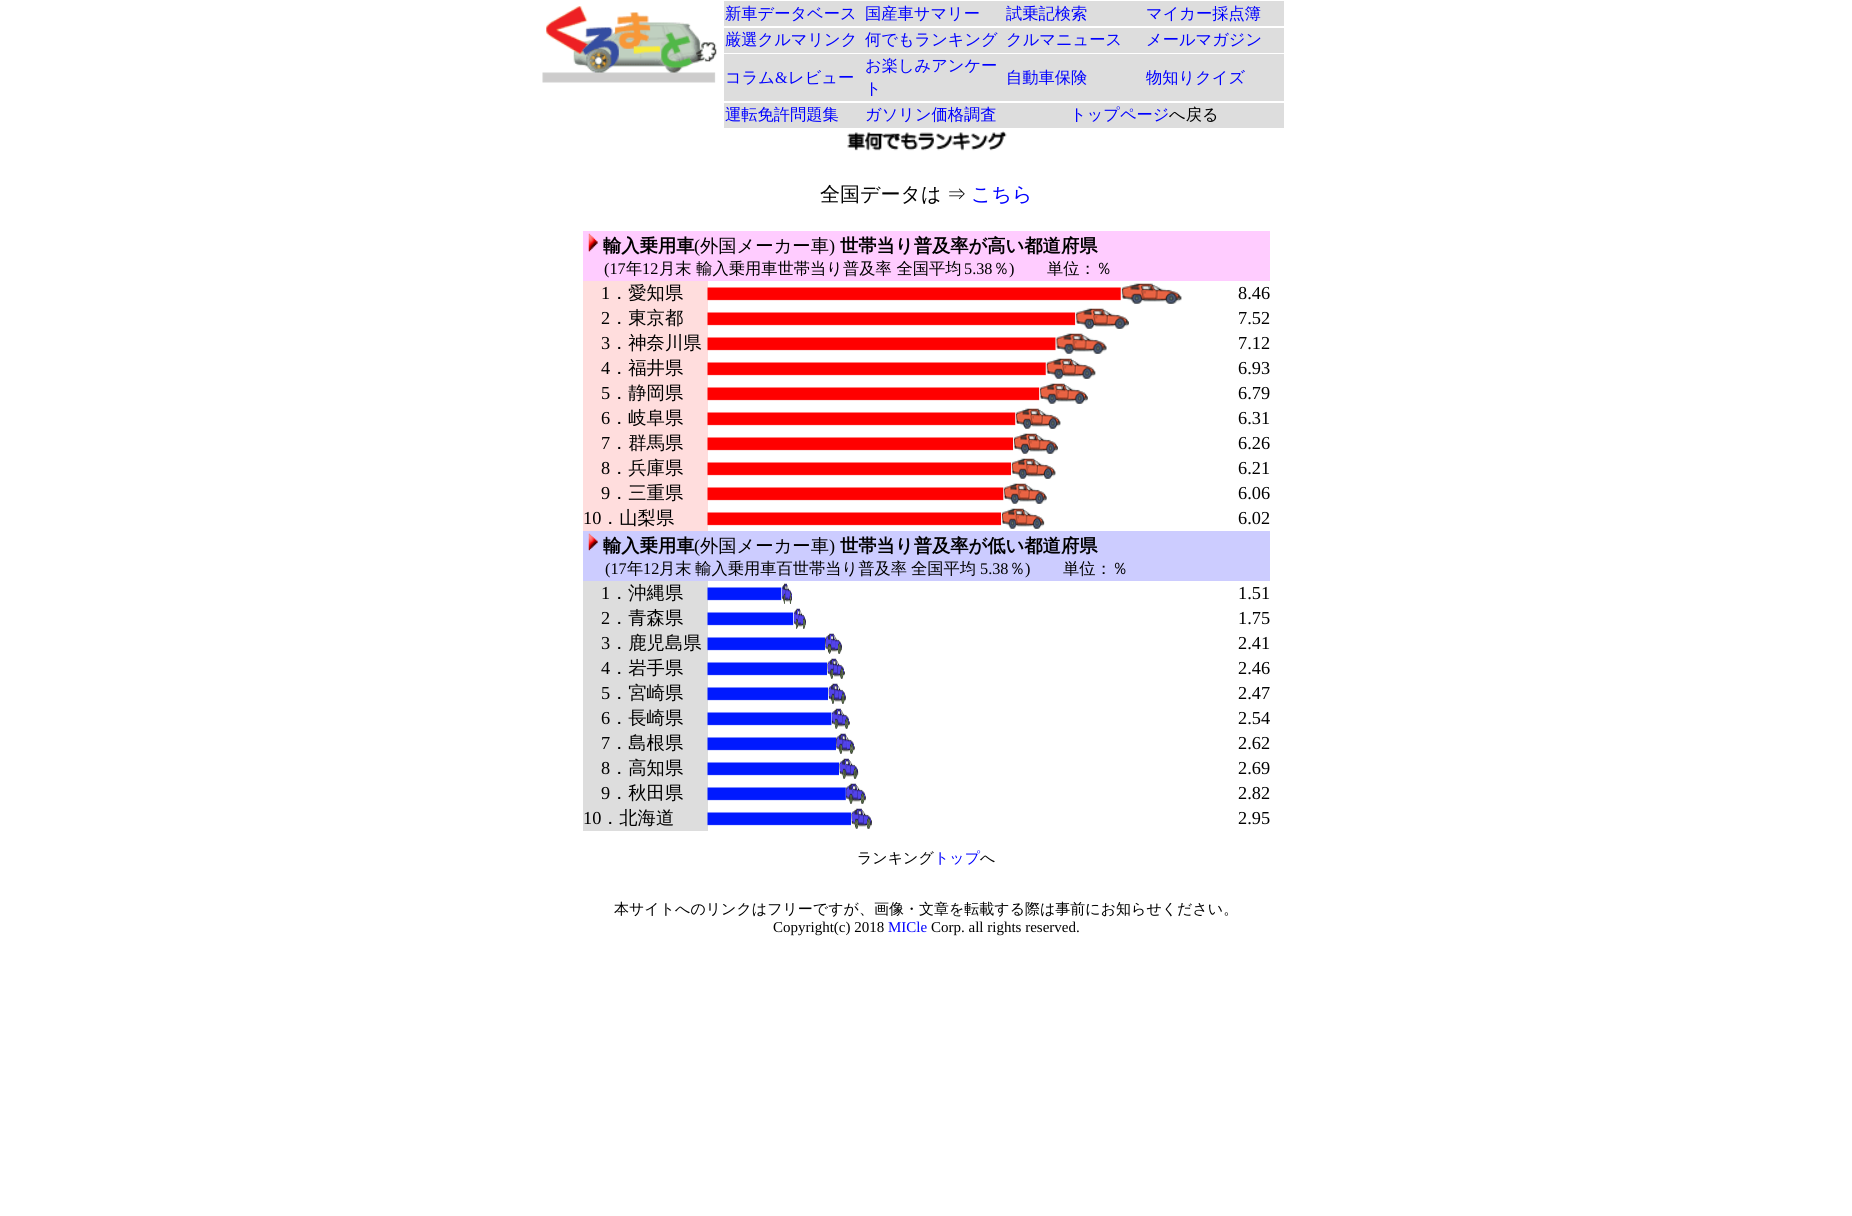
#include <cairo.h>
#include <math.h>
#include <stddef.h>

static cairo_t *ctx;

static void use_color(int r, int g, int b) {
    cairo_set_source_rgb(ctx, r / 255.0, g / 255.0, b / 255.0);
}

static void spaced_text(double x, double y, const char *s, double letter, double word) {
    cairo_move_to(ctx, x, y);
    while (*s) {
        char ch[5] = {0};
        int n = 0;
        do ch[n++] = *s++; while ((*s & 0xC0) == 0x80);
        cairo_show_text(ctx, ch);
        cairo_rel_move_to(ctx, letter + word * (*ch == ' '), 0);
    }
}

static void picture(const char *path, double x, double y, double w, double h) {
    cairo_surface_t *image = cairo_image_surface_create_from_png(path);
    cairo_save(ctx);
    cairo_set_source_surface(ctx, image, x, y);
    cairo_rectangle(ctx, x, y, w, h);
    cairo_fill(ctx);
    cairo_restore(ctx);
    cairo_surface_destroy(image);
}

int main(void) {
    cairo_surface_t *surface = cairo_image_surface_create(CAIRO_FORMAT_RGB24, 1852, 1216);
    ctx = cairo_create(surface);
    cairo_font_options_t *options = cairo_font_options_create();
    cairo_font_options_set_hint_metrics(options, CAIRO_HINT_METRICS_OFF);
    cairo_font_options_set_hint_style(options, CAIRO_HINT_STYLE_NONE);
    cairo_set_font_options(ctx, options);
    cairo_set_miter_limit(ctx, 4);
    use_color(255, 255, 255);
    cairo_paint(ctx);
    picture("img1.png", 542, 6, 175, 77);
    use_color(221, 221, 221);
    cairo_rectangle(ctx, 724, 1, 560, 25);
    cairo_fill(ctx);
    cairo_select_font_face(ctx, "WenQuanYi Zen Hei Medium", CAIRO_FONT_SLANT_NORMAL, CAIRO_FONT_WEIGHT_NORMAL);
    cairo_set_font_size(ctx, 16.25);
    use_color(0, 0, 255);
    cairo_move_to(ctx, 725, 19);
    cairo_show_text(ctx, "新車データベース");
    cairo_move_to(ctx, 865, 19);
    cairo_show_text(ctx, "国産車サマリー");
    cairo_move_to(ctx, 1006, 19);
    cairo_show_text(ctx, "試乗記検索");
    cairo_move_to(ctx, 1146, 19);
    cairo_show_text(ctx, "マイカー採点簿");
    use_color(221, 221, 221);
    cairo_rectangle(ctx, 724, 28, 560, 25);
    cairo_fill(ctx);
    use_color(0, 0, 255);
    cairo_move_to(ctx, 725, 45);
    cairo_show_text(ctx, "厳選クルマリンク");
    cairo_move_to(ctx, 865, 45);
    cairo_show_text(ctx, "何でもランキング");
    cairo_move_to(ctx, 1006, 45);
    cairo_show_text(ctx, "クルマニュース");
    cairo_move_to(ctx, 1146, 45);
    cairo_show_text(ctx, "メールマガジン");
    use_color(221, 221, 221);
    cairo_rectangle(ctx, 724, 54, 560, 47);
    cairo_fill(ctx);
    use_color(0, 0, 255);
    cairo_move_to(ctx, 725, 83);
    cairo_show_text(ctx, "コラム");
    cairo_select_font_face(ctx, "Liberation Serif", CAIRO_FONT_SLANT_NORMAL, CAIRO_FONT_WEIGHT_NORMAL);
    cairo_move_to(ctx, 775, 83);
    cairo_show_text(ctx, "&");
    cairo_select_font_face(ctx, "WenQuanYi Zen Hei Medium", CAIRO_FONT_SLANT_NORMAL, CAIRO_FONT_WEIGHT_NORMAL);
    cairo_move_to(ctx, 788, 83);
    cairo_show_text(ctx, "レビュー");
    cairo_move_to(ctx, 865, 71);
    cairo_show_text(ctx, "お楽しみアンケー");
    cairo_move_to(ctx, 865, 94);
    cairo_show_text(ctx, "ト");
    cairo_move_to(ctx, 1006, 83);
    cairo_show_text(ctx, "自動車保険");
    cairo_move_to(ctx, 1146, 83);
    cairo_show_text(ctx, "物知りクイズ");
    use_color(221, 221, 221);
    cairo_rectangle(ctx, 724, 103, 560, 25);
    cairo_fill(ctx);
    use_color(0, 0, 255);
    cairo_move_to(ctx, 725, 120);
    cairo_show_text(ctx, "運転免許問題集");
    cairo_move_to(ctx, 865, 120);
    cairo_show_text(ctx, "ガソリン価格調査");
    cairo_move_to(ctx, 1070, 120);
    cairo_show_text(ctx, "トップページ");
    use_color(0, 0, 0);
    cairo_move_to(ctx, 1169, 120);
    cairo_show_text(ctx, "へ戻る");
    picture("img2.png", 847, 131, 160, 20);
    cairo_set_font_size(ctx, 20);
    spaced_text(820, 201, "全国データは ⇒", 0, -1);
    use_color(0, 0, 255);
    cairo_move_to(ctx, 971, 201);
    cairo_show_text(ctx, "こちら");
    use_color(255, 204, 255);
    cairo_rectangle(ctx, 583, 231, 687, 50);
    cairo_fill(ctx);
    picture("img3.png", 588, 233, 10, 19);
    cairo_select_font_face(ctx, "WenQuanYi Zen Hei", CAIRO_FONT_SLANT_NORMAL, CAIRO_FONT_WEIGHT_BOLD);
    cairo_set_font_size(ctx, 18.3);
    use_color(0, 0, 0);
    cairo_move_to(ctx, 603, 252);
    cairo_show_text(ctx, "輸入乗用車");
    cairo_select_font_face(ctx, "Liberation Serif", CAIRO_FONT_SLANT_NORMAL, CAIRO_FONT_WEIGHT_NORMAL);
    cairo_move_to(ctx, 694, 252);
    cairo_show_text(ctx, "(");
    cairo_select_font_face(ctx, "WenQuanYi Zen Hei Medium", CAIRO_FONT_SLANT_NORMAL, CAIRO_FONT_WEIGHT_NORMAL);
    cairo_move_to(ctx, 700, 252);
    cairo_show_text(ctx, "外国メーカー車");
    cairo_select_font_face(ctx, "Liberation Serif", CAIRO_FONT_SLANT_NORMAL, CAIRO_FONT_WEIGHT_NORMAL);
    cairo_move_to(ctx, 829, 252);
    cairo_show_text(ctx, ")");
    cairo_select_font_face(ctx, "WenQuanYi Zen Hei", CAIRO_FONT_SLANT_NORMAL, CAIRO_FONT_WEIGHT_BOLD);
    cairo_move_to(ctx, 840, 252);
    cairo_show_text(ctx, "世帯当り普及率が高い都道府県");
    cairo_select_font_face(ctx, "Liberation Serif", CAIRO_FONT_SLANT_NORMAL, CAIRO_FONT_WEIGHT_NORMAL);
    cairo_set_font_size(ctx, 16.25);
    cairo_move_to(ctx, 604, 274);
    cairo_show_text(ctx, "(17");
    cairo_select_font_face(ctx, "WenQuanYi Zen Hei Medium", CAIRO_FONT_SLANT_NORMAL, CAIRO_FONT_WEIGHT_NORMAL);
    cairo_move_to(ctx, 626, 274);
    cairo_show_text(ctx, "年");
    cairo_select_font_face(ctx, "Liberation Serif", CAIRO_FONT_SLANT_NORMAL, CAIRO_FONT_WEIGHT_NORMAL);
    cairo_move_to(ctx, 642, 274);
    cairo_show_text(ctx, "12");
    cairo_select_font_face(ctx, "WenQuanYi Zen Hei Medium", CAIRO_FONT_SLANT_NORMAL, CAIRO_FONT_WEIGHT_NORMAL);
    cairo_move_to(ctx, 659, 274);
    cairo_show_text(ctx, "月末 輸入乗用車世帯当り普及率 全国平均");
    cairo_select_font_face(ctx, "Liberation Serif", CAIRO_FONT_SLANT_NORMAL, CAIRO_FONT_WEIGHT_NORMAL);
    cairo_move_to(ctx, 964, 274);
    cairo_show_text(ctx, "5.38");
    cairo_select_font_face(ctx, "WenQuanYi Zen Hei Medium", CAIRO_FONT_SLANT_NORMAL, CAIRO_FONT_WEIGHT_NORMAL);
    cairo_move_to(ctx, 993, 274);
    cairo_show_text(ctx, "％");
    cairo_select_font_face(ctx, "Liberation Serif", CAIRO_FONT_SLANT_NORMAL, CAIRO_FONT_WEIGHT_NORMAL);
    cairo_move_to(ctx, 1009, 274);
    cairo_show_text(ctx, ")");
    cairo_select_font_face(ctx, "WenQuanYi Zen Hei Medium", CAIRO_FONT_SLANT_NORMAL, CAIRO_FONT_WEIGHT_NORMAL);
    cairo_move_to(ctx, 1047, 274);
    cairo_show_text(ctx, "単位：％");
    use_color(255, 221, 221);
    cairo_rectangle(ctx, 583, 281, 125, 250);
    cairo_fill(ctx);
    cairo_select_font_face(ctx, "Liberation Serif", CAIRO_FONT_SLANT_NORMAL, CAIRO_FONT_WEIGHT_NORMAL);
    cairo_set_font_size(ctx, 18.3);
    use_color(0, 0, 0);
    cairo_move_to(ctx, 601, 299);
    cairo_show_text(ctx, "1");
    cairo_select_font_face(ctx, "WenQuanYi Zen Hei Medium", CAIRO_FONT_SLANT_NORMAL, CAIRO_FONT_WEIGHT_NORMAL);
    cairo_move_to(ctx, 610, 299);
    cairo_show_text(ctx, "．愛知県");
    picture("img4.png", 707, 283, 475, 21);
    cairo_select_font_face(ctx, "Liberation Serif", CAIRO_FONT_SLANT_NORMAL, CAIRO_FONT_WEIGHT_NORMAL);
    cairo_move_to(ctx, 1238, 299);
    cairo_show_text(ctx, "8.46");
    cairo_move_to(ctx, 601, 324);
    cairo_show_text(ctx, "2");
    cairo_select_font_face(ctx, "WenQuanYi Zen Hei Medium", CAIRO_FONT_SLANT_NORMAL, CAIRO_FONT_WEIGHT_NORMAL);
    cairo_move_to(ctx, 610, 324);
    cairo_show_text(ctx, "．東京都");
    picture("img5.png", 707, 308, 422, 21);
    cairo_select_font_face(ctx, "Liberation Serif", CAIRO_FONT_SLANT_NORMAL, CAIRO_FONT_WEIGHT_NORMAL);
    cairo_move_to(ctx, 1238, 324);
    cairo_show_text(ctx, "7.52");
    cairo_move_to(ctx, 601, 349);
    cairo_show_text(ctx, "3");
    cairo_select_font_face(ctx, "WenQuanYi Zen Hei Medium", CAIRO_FONT_SLANT_NORMAL, CAIRO_FONT_WEIGHT_NORMAL);
    cairo_move_to(ctx, 610, 349);
    cairo_show_text(ctx, "．神奈川県");
    picture("img6.png", 707, 333, 400, 21);
    cairo_select_font_face(ctx, "Liberation Serif", CAIRO_FONT_SLANT_NORMAL, CAIRO_FONT_WEIGHT_NORMAL);
    cairo_move_to(ctx, 1238, 349);
    cairo_show_text(ctx, "7.12");
    cairo_move_to(ctx, 601, 374);
    cairo_show_text(ctx, "4");
    cairo_select_font_face(ctx, "WenQuanYi Zen Hei Medium", CAIRO_FONT_SLANT_NORMAL, CAIRO_FONT_WEIGHT_NORMAL);
    cairo_move_to(ctx, 610, 374);
    cairo_show_text(ctx, "．福井県");
    picture("img7.png", 707, 358, 389, 21);
    cairo_select_font_face(ctx, "Liberation Serif", CAIRO_FONT_SLANT_NORMAL, CAIRO_FONT_WEIGHT_NORMAL);
    cairo_move_to(ctx, 1238, 374);
    cairo_show_text(ctx, "6.93");
    cairo_move_to(ctx, 601, 399);
    cairo_show_text(ctx, "5");
    cairo_select_font_face(ctx, "WenQuanYi Zen Hei Medium", CAIRO_FONT_SLANT_NORMAL, CAIRO_FONT_WEIGHT_NORMAL);
    cairo_move_to(ctx, 610, 399);
    cairo_show_text(ctx, "．静岡県");
    picture("img8.png", 707, 383, 381, 21);
    cairo_select_font_face(ctx, "Liberation Serif", CAIRO_FONT_SLANT_NORMAL, CAIRO_FONT_WEIGHT_NORMAL);
    cairo_move_to(ctx, 1238, 399);
    cairo_show_text(ctx, "6.79");
    cairo_move_to(ctx, 601, 424);
    cairo_show_text(ctx, "6");
    cairo_select_font_face(ctx, "WenQuanYi Zen Hei Medium", CAIRO_FONT_SLANT_NORMAL, CAIRO_FONT_WEIGHT_NORMAL);
    cairo_move_to(ctx, 610, 424);
    cairo_show_text(ctx, "．岐阜県");
    picture("img9.png", 707, 408, 354, 21);
    cairo_select_font_face(ctx, "Liberation Serif", CAIRO_FONT_SLANT_NORMAL, CAIRO_FONT_WEIGHT_NORMAL);
    cairo_move_to(ctx, 1238, 424);
    cairo_show_text(ctx, "6.31");
    cairo_move_to(ctx, 601, 449);
    cairo_show_text(ctx, "7");
    cairo_select_font_face(ctx, "WenQuanYi Zen Hei Medium", CAIRO_FONT_SLANT_NORMAL, CAIRO_FONT_WEIGHT_NORMAL);
    cairo_move_to(ctx, 610, 449);
    cairo_show_text(ctx, "．群馬県");
    picture("img10.png", 707, 433, 351, 21);
    cairo_select_font_face(ctx, "Liberation Serif", CAIRO_FONT_SLANT_NORMAL, CAIRO_FONT_WEIGHT_NORMAL);
    cairo_move_to(ctx, 1238, 449);
    cairo_show_text(ctx, "6.26");
    cairo_move_to(ctx, 601, 474);
    cairo_show_text(ctx, "8");
    cairo_select_font_face(ctx, "WenQuanYi Zen Hei Medium", CAIRO_FONT_SLANT_NORMAL, CAIRO_FONT_WEIGHT_NORMAL);
    cairo_move_to(ctx, 610, 474);
    cairo_show_text(ctx, "．兵庫県");
    picture("img11.png", 707, 458, 349, 21);
    cairo_select_font_face(ctx, "Liberation Serif", CAIRO_FONT_SLANT_NORMAL, CAIRO_FONT_WEIGHT_NORMAL);
    cairo_move_to(ctx, 1238, 474);
    cairo_show_text(ctx, "6.21");
    cairo_move_to(ctx, 601, 499);
    cairo_show_text(ctx, "9");
    cairo_select_font_face(ctx, "WenQuanYi Zen Hei Medium", CAIRO_FONT_SLANT_NORMAL, CAIRO_FONT_WEIGHT_NORMAL);
    cairo_move_to(ctx, 610, 499);
    cairo_show_text(ctx, "．三重県");
    picture("img12.png", 707, 483, 340, 21);
    cairo_select_font_face(ctx, "Liberation Serif", CAIRO_FONT_SLANT_NORMAL, CAIRO_FONT_WEIGHT_NORMAL);
    cairo_move_to(ctx, 1238, 499);
    cairo_show_text(ctx, "6.06");
    cairo_move_to(ctx, 583, 524);
    cairo_show_text(ctx, "10");
    cairo_select_font_face(ctx, "WenQuanYi Zen Hei Medium", CAIRO_FONT_SLANT_NORMAL, CAIRO_FONT_WEIGHT_NORMAL);
    cairo_move_to(ctx, 601, 524);
    cairo_show_text(ctx, "．山梨県");
    picture("img13.png", 707, 508, 338, 21);
    cairo_select_font_face(ctx, "Liberation Serif", CAIRO_FONT_SLANT_NORMAL, CAIRO_FONT_WEIGHT_NORMAL);
    cairo_move_to(ctx, 1238, 524);
    cairo_show_text(ctx, "6.02");
    use_color(204, 204, 255);
    cairo_rectangle(ctx, 583, 531, 687, 50);
    cairo_fill(ctx);
    picture("img14.png", 588, 533, 10, 18);
    cairo_select_font_face(ctx, "WenQuanYi Zen Hei", CAIRO_FONT_SLANT_NORMAL, CAIRO_FONT_WEIGHT_BOLD);
    use_color(0, 0, 0);
    cairo_move_to(ctx, 603, 552);
    cairo_show_text(ctx, "輸入乗用車");
    cairo_select_font_face(ctx, "Liberation Serif", CAIRO_FONT_SLANT_NORMAL, CAIRO_FONT_WEIGHT_NORMAL);
    cairo_move_to(ctx, 694, 552);
    cairo_show_text(ctx, "(");
    cairo_select_font_face(ctx, "WenQuanYi Zen Hei Medium", CAIRO_FONT_SLANT_NORMAL, CAIRO_FONT_WEIGHT_NORMAL);
    cairo_move_to(ctx, 700, 552);
    cairo_show_text(ctx, "外国メーカー車");
    cairo_select_font_face(ctx, "Liberation Serif", CAIRO_FONT_SLANT_NORMAL, CAIRO_FONT_WEIGHT_NORMAL);
    cairo_move_to(ctx, 829, 552);
    cairo_show_text(ctx, ")");
    cairo_select_font_face(ctx, "WenQuanYi Zen Hei", CAIRO_FONT_SLANT_NORMAL, CAIRO_FONT_WEIGHT_BOLD);
    cairo_move_to(ctx, 840, 552);
    cairo_show_text(ctx, "世帯当り普及率が低い都道府県");
    cairo_select_font_face(ctx, "Liberation Serif", CAIRO_FONT_SLANT_NORMAL, CAIRO_FONT_WEIGHT_NORMAL);
    cairo_set_font_size(ctx, 16.25);
    cairo_move_to(ctx, 605, 574);
    cairo_show_text(ctx, "(17");
    cairo_select_font_face(ctx, "WenQuanYi Zen Hei Medium", CAIRO_FONT_SLANT_NORMAL, CAIRO_FONT_WEIGHT_NORMAL);
    cairo_move_to(ctx, 627, 574);
    cairo_show_text(ctx, "年");
    cairo_select_font_face(ctx, "Liberation Serif", CAIRO_FONT_SLANT_NORMAL, CAIRO_FONT_WEIGHT_NORMAL);
    cairo_move_to(ctx, 643, 574);
    cairo_show_text(ctx, "12");
    cairo_select_font_face(ctx, "WenQuanYi Zen Hei Medium", CAIRO_FONT_SLANT_NORMAL, CAIRO_FONT_WEIGHT_NORMAL);
    spaced_text(659, 574, "月末 輸入乗用車百世帯当り普及率", 0, -1);
    cairo_move_to(ctx, 911, 574);
    cairo_show_text(ctx, "全国平均");
    cairo_select_font_face(ctx, "Liberation Serif", CAIRO_FONT_SLANT_NORMAL, CAIRO_FONT_WEIGHT_NORMAL);
    cairo_move_to(ctx, 980, 574);
    cairo_show_text(ctx, "5.38");
    cairo_select_font_face(ctx, "WenQuanYi Zen Hei Medium", CAIRO_FONT_SLANT_NORMAL, CAIRO_FONT_WEIGHT_NORMAL);
    cairo_move_to(ctx, 1009, 574);
    cairo_show_text(ctx, "％");
    cairo_select_font_face(ctx, "Liberation Serif", CAIRO_FONT_SLANT_NORMAL, CAIRO_FONT_WEIGHT_NORMAL);
    cairo_move_to(ctx, 1025, 574);
    cairo_show_text(ctx, ")");
    cairo_select_font_face(ctx, "WenQuanYi Zen Hei Medium", CAIRO_FONT_SLANT_NORMAL, CAIRO_FONT_WEIGHT_NORMAL);
    cairo_move_to(ctx, 1063, 574);
    cairo_show_text(ctx, "単位：％");
    use_color(221, 221, 221);
    cairo_rectangle(ctx, 583, 581, 125, 250);
    cairo_fill(ctx);
    cairo_select_font_face(ctx, "Liberation Serif", CAIRO_FONT_SLANT_NORMAL, CAIRO_FONT_WEIGHT_NORMAL);
    cairo_set_font_size(ctx, 18.3);
    use_color(0, 0, 0);
    cairo_move_to(ctx, 601, 599);
    cairo_show_text(ctx, "1");
    cairo_select_font_face(ctx, "WenQuanYi Zen Hei Medium", CAIRO_FONT_SLANT_NORMAL, CAIRO_FONT_WEIGHT_NORMAL);
    cairo_move_to(ctx, 610, 599);
    cairo_show_text(ctx, "．沖縄県");
    picture("img15.png", 707, 583, 85, 21);
    cairo_select_font_face(ctx, "Liberation Serif", CAIRO_FONT_SLANT_NORMAL, CAIRO_FONT_WEIGHT_NORMAL);
    cairo_move_to(ctx, 1238, 599);
    cairo_show_text(ctx, "1.51");
    cairo_move_to(ctx, 601, 624);
    cairo_show_text(ctx, "2");
    cairo_select_font_face(ctx, "WenQuanYi Zen Hei Medium", CAIRO_FONT_SLANT_NORMAL, CAIRO_FONT_WEIGHT_NORMAL);
    cairo_move_to(ctx, 610, 624);
    cairo_show_text(ctx, "．青森県");
    picture("img16.png", 707, 608, 99, 21);
    cairo_select_font_face(ctx, "Liberation Serif", CAIRO_FONT_SLANT_NORMAL, CAIRO_FONT_WEIGHT_NORMAL);
    cairo_move_to(ctx, 1238, 624);
    cairo_show_text(ctx, "1.75");
    cairo_move_to(ctx, 601, 649);
    cairo_show_text(ctx, "3");
    cairo_select_font_face(ctx, "WenQuanYi Zen Hei Medium", CAIRO_FONT_SLANT_NORMAL, CAIRO_FONT_WEIGHT_NORMAL);
    cairo_move_to(ctx, 610, 649);
    cairo_show_text(ctx, "．鹿児島県");
    picture("img17.png", 707, 633, 135, 21);
    cairo_select_font_face(ctx, "Liberation Serif", CAIRO_FONT_SLANT_NORMAL, CAIRO_FONT_WEIGHT_NORMAL);
    cairo_move_to(ctx, 1238, 649);
    cairo_show_text(ctx, "2.41");
    cairo_move_to(ctx, 601, 674);
    cairo_show_text(ctx, "4");
    cairo_select_font_face(ctx, "WenQuanYi Zen Hei Medium", CAIRO_FONT_SLANT_NORMAL, CAIRO_FONT_WEIGHT_NORMAL);
    cairo_move_to(ctx, 610, 674);
    cairo_show_text(ctx, "．岩手県");
    picture("img18.png", 707, 658, 138, 21);
    cairo_select_font_face(ctx, "Liberation Serif", CAIRO_FONT_SLANT_NORMAL, CAIRO_FONT_WEIGHT_NORMAL);
    cairo_move_to(ctx, 1238, 674);
    cairo_show_text(ctx, "2.46");
    cairo_move_to(ctx, 601, 699);
    cairo_show_text(ctx, "5");
    cairo_select_font_face(ctx, "WenQuanYi Zen Hei Medium", CAIRO_FONT_SLANT_NORMAL, CAIRO_FONT_WEIGHT_NORMAL);
    cairo_move_to(ctx, 610, 699);
    cairo_show_text(ctx, "．宮崎県");
    picture("img19.png", 707, 683, 139, 21);
    cairo_select_font_face(ctx, "Liberation Serif", CAIRO_FONT_SLANT_NORMAL, CAIRO_FONT_WEIGHT_NORMAL);
    cairo_move_to(ctx, 1238, 699);
    cairo_show_text(ctx, "2.47");
    cairo_move_to(ctx, 601, 724);
    cairo_show_text(ctx, "6");
    cairo_select_font_face(ctx, "WenQuanYi Zen Hei Medium", CAIRO_FONT_SLANT_NORMAL, CAIRO_FONT_WEIGHT_NORMAL);
    cairo_move_to(ctx, 610, 724);
    cairo_show_text(ctx, "．長崎県");
    picture("img20.png", 707, 708, 143, 21);
    cairo_select_font_face(ctx, "Liberation Serif", CAIRO_FONT_SLANT_NORMAL, CAIRO_FONT_WEIGHT_NORMAL);
    cairo_move_to(ctx, 1238, 724);
    cairo_show_text(ctx, "2.54");
    cairo_move_to(ctx, 601, 749);
    cairo_show_text(ctx, "7");
    cairo_select_font_face(ctx, "WenQuanYi Zen Hei Medium", CAIRO_FONT_SLANT_NORMAL, CAIRO_FONT_WEIGHT_NORMAL);
    cairo_move_to(ctx, 610, 749);
    cairo_show_text(ctx, "．島根県");
    picture("img21.png", 707, 733, 148, 21);
    cairo_select_font_face(ctx, "Liberation Serif", CAIRO_FONT_SLANT_NORMAL, CAIRO_FONT_WEIGHT_NORMAL);
    cairo_move_to(ctx, 1238, 749);
    cairo_show_text(ctx, "2.62");
    cairo_move_to(ctx, 601, 774);
    cairo_show_text(ctx, "8");
    cairo_select_font_face(ctx, "WenQuanYi Zen Hei Medium", CAIRO_FONT_SLANT_NORMAL, CAIRO_FONT_WEIGHT_NORMAL);
    cairo_move_to(ctx, 610, 774);
    cairo_show_text(ctx, "．高知県");
    picture("img22.png", 707, 758, 152, 21);
    cairo_select_font_face(ctx, "Liberation Serif", CAIRO_FONT_SLANT_NORMAL, CAIRO_FONT_WEIGHT_NORMAL);
    cairo_move_to(ctx, 1238, 774);
    cairo_show_text(ctx, "2.69");
    cairo_move_to(ctx, 601, 799);
    cairo_show_text(ctx, "9");
    cairo_select_font_face(ctx, "WenQuanYi Zen Hei Medium", CAIRO_FONT_SLANT_NORMAL, CAIRO_FONT_WEIGHT_NORMAL);
    cairo_move_to(ctx, 610, 799);
    cairo_show_text(ctx, "．秋田県");
    picture("img23.png", 707, 783, 159, 21);
    cairo_select_font_face(ctx, "Liberation Serif", CAIRO_FONT_SLANT_NORMAL, CAIRO_FONT_WEIGHT_NORMAL);
    cairo_move_to(ctx, 1238, 799);
    cairo_show_text(ctx, "2.82");
    cairo_move_to(ctx, 583, 824);
    cairo_show_text(ctx, "10");
    cairo_select_font_face(ctx, "WenQuanYi Zen Hei Medium", CAIRO_FONT_SLANT_NORMAL, CAIRO_FONT_WEIGHT_NORMAL);
    cairo_move_to(ctx, 601, 824);
    cairo_show_text(ctx, "．北海道");
    picture("img24.png", 707, 808, 165, 21);
    cairo_select_font_face(ctx, "Liberation Serif", CAIRO_FONT_SLANT_NORMAL, CAIRO_FONT_WEIGHT_NORMAL);
    cairo_move_to(ctx, 1238, 824);
    cairo_show_text(ctx, "2.95");
    cairo_select_font_face(ctx, "WenQuanYi Zen Hei Medium", CAIRO_FONT_SLANT_NORMAL, CAIRO_FONT_WEIGHT_NORMAL);
    cairo_set_font_size(ctx, 15);
    cairo_move_to(ctx, 857, 863);
    cairo_show_text(ctx, "ランキング");
    use_color(0, 0, 255);
    cairo_move_to(ctx, 934, 863);
    cairo_show_text(ctx, "トップ");
    use_color(0, 0, 0);
    cairo_move_to(ctx, 980, 863);
    cairo_show_text(ctx, "へ");
    cairo_move_to(ctx, 614, 914);
    cairo_show_text(ctx, "本サイトへのリンクはフリーですが、画像・文章を転載する際は事前にお知らせください。");
    cairo_select_font_face(ctx, "Liberation Serif", CAIRO_FONT_SLANT_NORMAL, CAIRO_FONT_WEIGHT_NORMAL);
    cairo_move_to(ctx, 773, 932);
    cairo_show_text(ctx, "Copyright(c) 2018");
    use_color(0, 0, 255);
    cairo_move_to(ctx, 888, 932);
    cairo_show_text(ctx, "MICle");
    use_color(0, 0, 0);
    cairo_move_to(ctx, 931, 932);
    cairo_show_text(ctx, "Corp. all rights reserved.");
    cairo_surface_write_to_png(surface, "result.png");
    cairo_font_options_destroy(options);
    cairo_destroy(ctx);
    cairo_surface_destroy(surface);
    return 0;
}
